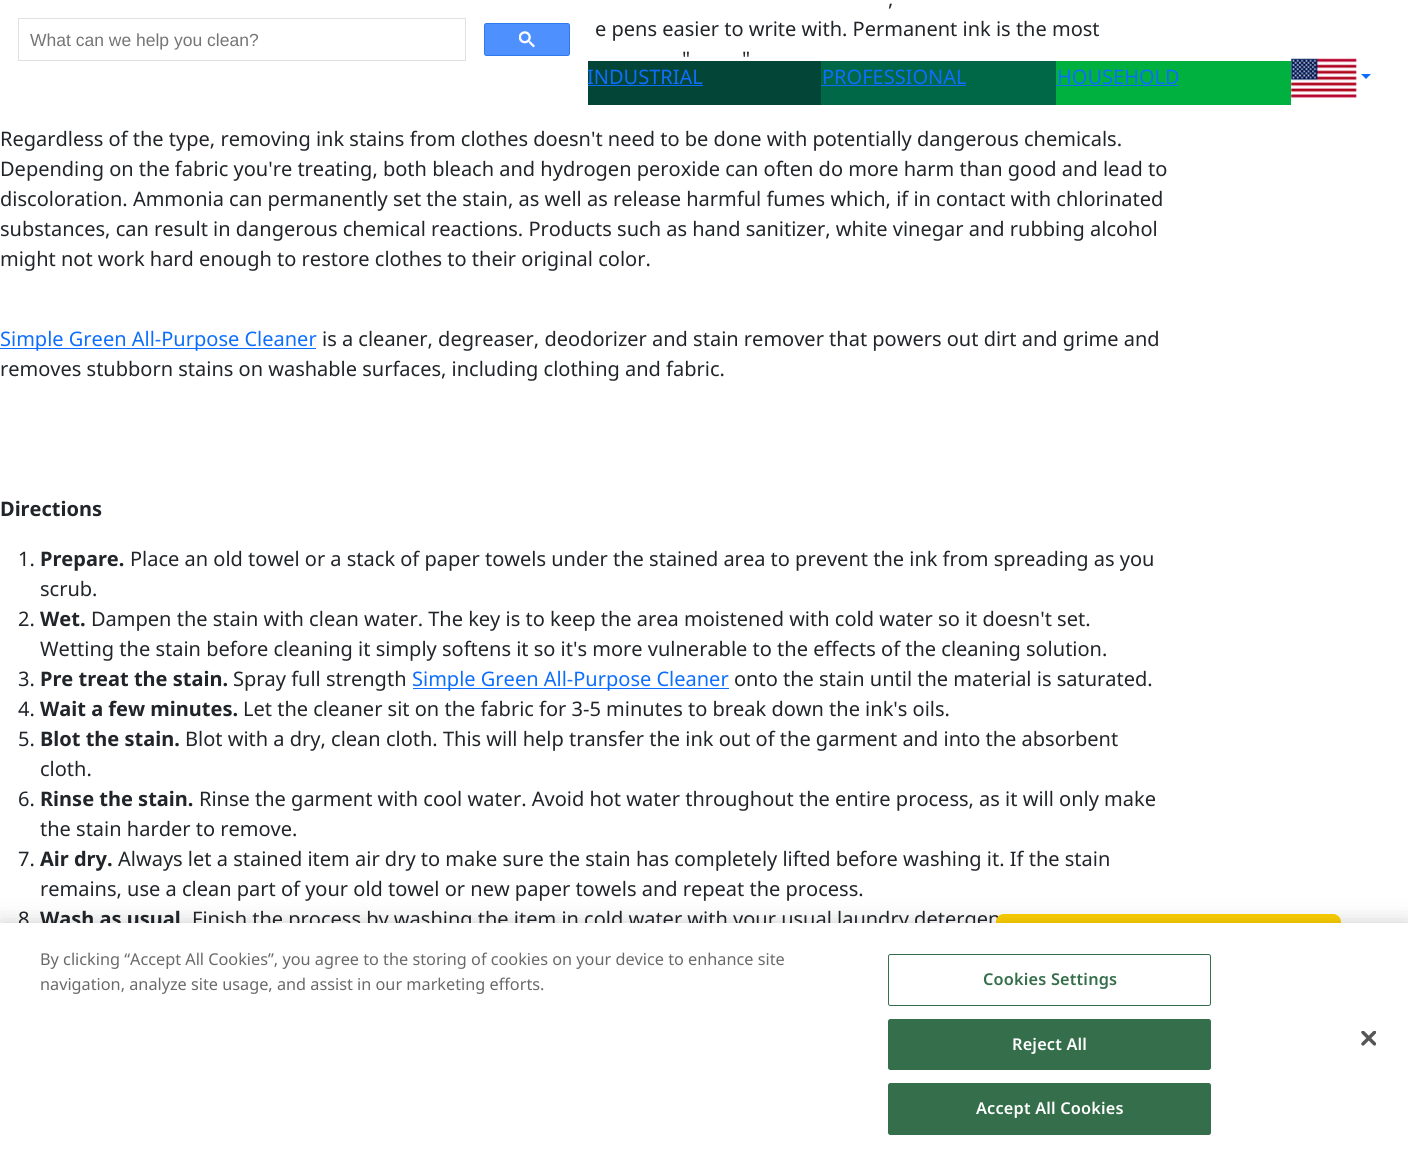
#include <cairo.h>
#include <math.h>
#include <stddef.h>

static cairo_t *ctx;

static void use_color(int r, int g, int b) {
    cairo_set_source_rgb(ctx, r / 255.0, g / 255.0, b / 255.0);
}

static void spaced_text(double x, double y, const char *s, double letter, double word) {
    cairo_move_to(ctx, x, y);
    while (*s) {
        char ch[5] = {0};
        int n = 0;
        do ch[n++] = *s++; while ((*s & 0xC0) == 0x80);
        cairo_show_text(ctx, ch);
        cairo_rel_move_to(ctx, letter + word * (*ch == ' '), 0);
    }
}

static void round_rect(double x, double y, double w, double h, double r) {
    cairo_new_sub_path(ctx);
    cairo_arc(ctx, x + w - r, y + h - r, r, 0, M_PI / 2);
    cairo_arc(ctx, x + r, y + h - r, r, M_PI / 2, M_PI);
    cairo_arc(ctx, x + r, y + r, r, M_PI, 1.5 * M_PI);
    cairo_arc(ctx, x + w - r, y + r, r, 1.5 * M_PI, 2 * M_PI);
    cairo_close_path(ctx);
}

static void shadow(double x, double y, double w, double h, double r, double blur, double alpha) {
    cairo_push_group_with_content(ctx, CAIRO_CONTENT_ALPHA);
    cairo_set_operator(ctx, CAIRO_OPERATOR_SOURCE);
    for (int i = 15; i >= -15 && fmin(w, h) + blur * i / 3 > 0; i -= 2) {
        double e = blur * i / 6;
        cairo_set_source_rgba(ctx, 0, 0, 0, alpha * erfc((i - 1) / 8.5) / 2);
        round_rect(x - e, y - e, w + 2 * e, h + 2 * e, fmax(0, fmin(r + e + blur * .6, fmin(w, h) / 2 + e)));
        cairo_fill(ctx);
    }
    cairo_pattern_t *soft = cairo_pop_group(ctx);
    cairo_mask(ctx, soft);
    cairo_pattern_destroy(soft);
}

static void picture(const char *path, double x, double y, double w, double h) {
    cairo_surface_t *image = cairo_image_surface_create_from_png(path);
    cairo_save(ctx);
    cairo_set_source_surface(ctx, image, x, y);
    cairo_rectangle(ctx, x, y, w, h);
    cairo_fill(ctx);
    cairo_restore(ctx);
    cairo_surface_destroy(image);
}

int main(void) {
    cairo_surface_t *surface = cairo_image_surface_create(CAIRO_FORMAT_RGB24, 1408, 1160);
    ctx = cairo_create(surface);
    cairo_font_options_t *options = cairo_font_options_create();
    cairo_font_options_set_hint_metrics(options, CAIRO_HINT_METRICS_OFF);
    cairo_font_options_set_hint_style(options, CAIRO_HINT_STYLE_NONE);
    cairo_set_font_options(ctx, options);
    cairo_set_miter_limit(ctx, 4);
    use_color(255, 255, 255);
    cairo_paint(ctx);
    cairo_select_font_face(ctx, "Noto Sans", CAIRO_FONT_SLANT_NORMAL, CAIRO_FONT_WEIGHT_NORMAL);
    cairo_set_font_size(ctx, 20);
    use_color(33, 37, 41);
    cairo_move_to(ctx, 888, 6);
    cairo_show_text(ctx, ",");
    cairo_move_to(ctx, 595, 36);
    cairo_show_text(ctx, "e pens easier to write with. Permanent ink is the most");
    cairo_move_to(ctx, 682, 66);
    cairo_show_text(ctx, "\"");
    cairo_move_to(ctx, 742, 66);
    cairo_show_text(ctx, "\"");
    cairo_move_to(ctx, 0, 146);
    cairo_show_text(ctx, "Regardless of the type, removing ink stains from clothes doesn't need to be done with potentially dangerous chemicals.");
    cairo_move_to(ctx, 0, 176);
    cairo_show_text(ctx, "Depending on the fabric you're treating, both bleach and hydrogen peroxide can often do more harm than good and lead to");
    cairo_move_to(ctx, 0, 206);
    cairo_show_text(ctx, "discoloration. Ammonia can permanently set the stain, as well as release harmful fumes which, if in contact with chlorinated");
    cairo_move_to(ctx, 0, 236);
    cairo_show_text(ctx, "substances, can result in dangerous chemical reactions. Products such as hand sanitizer, white vinegar and rubbing alcohol");
    cairo_move_to(ctx, 0, 266);
    cairo_show_text(ctx, "might not work hard enough to restore clothes to their original color.");
    use_color(13, 110, 253);
    cairo_rectangle(ctx, 0, 348, 316, 1);
    cairo_fill(ctx);
    cairo_move_to(ctx, 0, 346);
    cairo_show_text(ctx, "Simple Green All-Purpose Cleaner");
    use_color(33, 37, 41);
    cairo_move_to(ctx, 322, 346);
    cairo_show_text(ctx, "is a cleaner, degreaser, deodorizer and stain remover that powers out dirt and grime and");
    cairo_move_to(ctx, 0, 376);
    cairo_show_text(ctx, "removes stubborn stains on washable surfaces, including clothing and fabric.");
    cairo_select_font_face(ctx, "Noto Sans", CAIRO_FONT_SLANT_NORMAL, CAIRO_FONT_WEIGHT_BOLD);
    cairo_move_to(ctx, 0, 516);
    cairo_show_text(ctx, "Directions");
    cairo_select_font_face(ctx, "Noto Sans", CAIRO_FONT_SLANT_NORMAL, CAIRO_FONT_WEIGHT_NORMAL);
    cairo_move_to(ctx, 18, 566);
    cairo_show_text(ctx, "1.");
    cairo_select_font_face(ctx, "Noto Sans", CAIRO_FONT_SLANT_NORMAL, CAIRO_FONT_WEIGHT_BOLD);
    cairo_move_to(ctx, 40, 566);
    cairo_show_text(ctx, "Prepare.");
    cairo_select_font_face(ctx, "Noto Sans", CAIRO_FONT_SLANT_NORMAL, CAIRO_FONT_WEIGHT_NORMAL);
    cairo_move_to(ctx, 130, 566);
    cairo_show_text(ctx, "Place an old towel or a stack of paper towels under the stained area to prevent the ink from spreading as you");
    cairo_move_to(ctx, 40, 596);
    cairo_show_text(ctx, "scrub.");
    cairo_move_to(ctx, 18, 626);
    cairo_show_text(ctx, "2.");
    cairo_select_font_face(ctx, "Noto Sans", CAIRO_FONT_SLANT_NORMAL, CAIRO_FONT_WEIGHT_BOLD);
    cairo_move_to(ctx, 40, 626);
    cairo_show_text(ctx, "Wet.");
    cairo_select_font_face(ctx, "Noto Sans", CAIRO_FONT_SLANT_NORMAL, CAIRO_FONT_WEIGHT_NORMAL);
    cairo_move_to(ctx, 91, 626);
    cairo_show_text(ctx, "Dampen the stain with clean water. The key is to keep the area moistened with cold water so it doesn't set.");
    cairo_move_to(ctx, 40, 656);
    cairo_show_text(ctx, "Wetting the stain before cleaning it simply softens it so it's more vulnerable to the effects of the cleaning solution.");
    cairo_move_to(ctx, 18, 686);
    cairo_show_text(ctx, "3.");
    cairo_select_font_face(ctx, "Noto Sans", CAIRO_FONT_SLANT_NORMAL, CAIRO_FONT_WEIGHT_BOLD);
    cairo_move_to(ctx, 40, 686);
    cairo_show_text(ctx, "Pre treat the stain.");
    cairo_select_font_face(ctx, "Noto Sans", CAIRO_FONT_SLANT_NORMAL, CAIRO_FONT_WEIGHT_NORMAL);
    cairo_move_to(ctx, 233, 686);
    cairo_show_text(ctx, "Spray full strength");
    use_color(13, 110, 253);
    cairo_rectangle(ctx, 413, 688, 316, 1);
    cairo_fill(ctx);
    cairo_move_to(ctx, 412, 686);
    cairo_show_text(ctx, "Simple Green All-Purpose Cleaner");
    use_color(33, 37, 41);
    cairo_move_to(ctx, 734, 686);
    cairo_show_text(ctx, "onto the stain until the material is saturated.");
    cairo_move_to(ctx, 18, 716);
    cairo_show_text(ctx, "4.");
    cairo_select_font_face(ctx, "Noto Sans", CAIRO_FONT_SLANT_NORMAL, CAIRO_FONT_WEIGHT_BOLD);
    cairo_move_to(ctx, 40, 716);
    cairo_show_text(ctx, "Wait a few minutes.");
    cairo_select_font_face(ctx, "Noto Sans", CAIRO_FONT_SLANT_NORMAL, CAIRO_FONT_WEIGHT_NORMAL);
    cairo_move_to(ctx, 243, 716);
    cairo_show_text(ctx, "Let the cleaner sit on the fabric for 3-5 minutes to break down the ink's oils.");
    cairo_move_to(ctx, 18, 746);
    cairo_show_text(ctx, "5.");
    cairo_select_font_face(ctx, "Noto Sans", CAIRO_FONT_SLANT_NORMAL, CAIRO_FONT_WEIGHT_BOLD);
    cairo_move_to(ctx, 40, 746);
    cairo_show_text(ctx, "Blot the stain.");
    cairo_select_font_face(ctx, "Noto Sans", CAIRO_FONT_SLANT_NORMAL, CAIRO_FONT_WEIGHT_NORMAL);
    cairo_move_to(ctx, 185, 746);
    cairo_show_text(ctx, "Blot with a dry, clean cloth. This will help transfer the ink out of the garment and into the absorbent");
    cairo_move_to(ctx, 40, 776);
    cairo_show_text(ctx, "cloth.");
    cairo_move_to(ctx, 18, 806);
    cairo_show_text(ctx, "6.");
    cairo_select_font_face(ctx, "Noto Sans", CAIRO_FONT_SLANT_NORMAL, CAIRO_FONT_WEIGHT_BOLD);
    cairo_move_to(ctx, 40, 806);
    cairo_show_text(ctx, "Rinse the stain.");
    cairo_select_font_face(ctx, "Noto Sans", CAIRO_FONT_SLANT_NORMAL, CAIRO_FONT_WEIGHT_NORMAL);
    cairo_move_to(ctx, 199, 806);
    cairo_show_text(ctx, "Rinse the garment with cool water. Avoid hot water throughout the entire process, as it will only make");
    cairo_move_to(ctx, 40, 836);
    cairo_show_text(ctx, "the stain harder to remove.");
    cairo_move_to(ctx, 18, 866);
    cairo_show_text(ctx, "7.");
    cairo_select_font_face(ctx, "Noto Sans", CAIRO_FONT_SLANT_NORMAL, CAIRO_FONT_WEIGHT_BOLD);
    cairo_move_to(ctx, 40, 866);
    cairo_show_text(ctx, "Air dry.");
    cairo_select_font_face(ctx, "Noto Sans", CAIRO_FONT_SLANT_NORMAL, CAIRO_FONT_WEIGHT_NORMAL);
    cairo_move_to(ctx, 118, 866);
    cairo_show_text(ctx, "Always let a stained item air dry to make sure the stain has completely lifted before washing it. If the stain");
    cairo_move_to(ctx, 40, 896);
    cairo_show_text(ctx, "remains, use a clean part of your old towel or new paper towels and repeat the process.");
    cairo_move_to(ctx, 18, 926);
    cairo_show_text(ctx, "8");
    cairo_select_font_face(ctx, "Noto Sans", CAIRO_FONT_SLANT_NORMAL, CAIRO_FONT_WEIGHT_BOLD);
    cairo_move_to(ctx, 40, 926);
    cairo_show_text(ctx, "Wash as usual");
    cairo_select_font_face(ctx, "Noto Sans", CAIRO_FONT_SLANT_NORMAL, CAIRO_FONT_WEIGHT_NORMAL);
    cairo_move_to(ctx, 192, 926);
    cairo_show_text(ctx, "Finish the process by washing the item in cold water with your usual laundry detergen");
    cairo_rectangle(ctx, 18.5, 18.5, 447, 42);
    use_color(223, 225, 229);
    cairo_set_line_width(ctx, 1);
    cairo_stroke(ctx);
    cairo_select_font_face(ctx, "Liberation Sans", CAIRO_FONT_SLANT_NORMAL, CAIRO_FONT_WEIGHT_NORMAL);
    cairo_set_font_size(ctx, 17.5);
    use_color(117, 117, 117);
    cairo_move_to(ctx, 30, 46);
    cairo_show_text(ctx, "What can we help you clean?");
    use_color(77, 144, 254);
    round_rect(484.5, 23.5, 85, 32, 2);
    cairo_fill_preserve(ctx);
    use_color(48, 121, 237);
    cairo_stroke(ctx);
    picture("img1.png", 519, 31, 16, 17);
    use_color(3, 70, 56);
    cairo_rectangle(ctx, 588, 61, 233, 44);
    cairo_fill(ctx);
    cairo_select_font_face(ctx, "Noto Sans", CAIRO_FONT_SLANT_NORMAL, CAIRO_FONT_WEIGHT_NORMAL);
    cairo_set_font_size(ctx, 20);
    use_color(13, 110, 253);
    cairo_move_to(ctx, 587, 84);
    cairo_show_text(ctx, "INDUSTRIAL");
    cairo_rectangle(ctx, 588, 85, 115, 1);
    cairo_fill(ctx);
    use_color(0, 103, 71);
    cairo_rectangle(ctx, 821, 61, 235, 44);
    cairo_fill(ctx);
    use_color(13, 110, 253);
    cairo_move_to(ctx, 822, 84);
    cairo_show_text(ctx, "PROFESSIONAL");
    cairo_rectangle(ctx, 821, 85, 145, 1);
    cairo_fill(ctx);
    use_color(0, 177, 64);
    cairo_rectangle(ctx, 1056, 61, 235, 44);
    cairo_fill(ctx);
    use_color(13, 110, 253);
    cairo_move_to(ctx, 1057, 84);
    cairo_show_text(ctx, "HOUSEHOLD");
    cairo_rectangle(ctx, 1056, 85, 123, 1);
    cairo_fill(ctx);
    picture("img2.png", 1291, 58, 66, 40);
    cairo_new_path(ctx);
    cairo_move_to(ctx, 1361, 74);
    cairo_line_to(ctx, 1371, 74);
    cairo_line_to(ctx, 1366, 79);
    cairo_close_path(ctx);
    cairo_fill(ctx);
    use_color(255, 209, 0);
    round_rect(996, 914, 345, 59, 8);
    cairo_fill(ctx);
    use_color(0, 0, 0);
    shadow(0, 923, 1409, 237, 0, 11, 0.2);
    use_color(255, 255, 255);
    cairo_rectangle(ctx, 0, 923, 1408, 237);
    cairo_fill(ctx);
    cairo_set_font_size(ctx, 16.25);
    use_color(105, 105, 105);
    cairo_move_to(ctx, 40, 965);
    cairo_show_text(ctx, "By clicking “Accept All Cookies”, you agree to the storing of cookies on your device to enhance site");
    cairo_move_to(ctx, 40, 990);
    cairo_show_text(ctx, "navigation, analyze site usage, and assist in our marketing efforts.");
    round_rect(888.5, 954.5, 322, 51, 2);
    use_color(52, 110, 74);
    cairo_stroke(ctx);
    cairo_select_font_face(ctx, "Noto Sans SemiBold", CAIRO_FONT_SLANT_NORMAL, CAIRO_FONT_WEIGHT_NORMAL);
    spaced_text(983, 985, "Cookies Settings", 0.2, 0);
    round_rect(888.5, 1019.5, 322, 50, 2);
    cairo_fill_preserve(ctx);
    cairo_stroke(ctx);
    use_color(255, 255, 255);
    spaced_text(1012, 1050, "Reject All", 0.2, 0);
    use_color(52, 110, 74);
    round_rect(888.5, 1083.5, 322, 51, 2);
    cairo_fill_preserve(ctx);
    cairo_stroke(ctx);
    use_color(255, 255, 255);
    spaced_text(976, 1114, "Accept All Cookies", 0.2, 0);
    picture("img3.png", 1361, 1031, 15, 15);
    cairo_surface_write_to_png(surface, "result.png");
    cairo_font_options_destroy(options);
    cairo_destroy(ctx);
    cairo_surface_destroy(surface);
    return 0;
}
